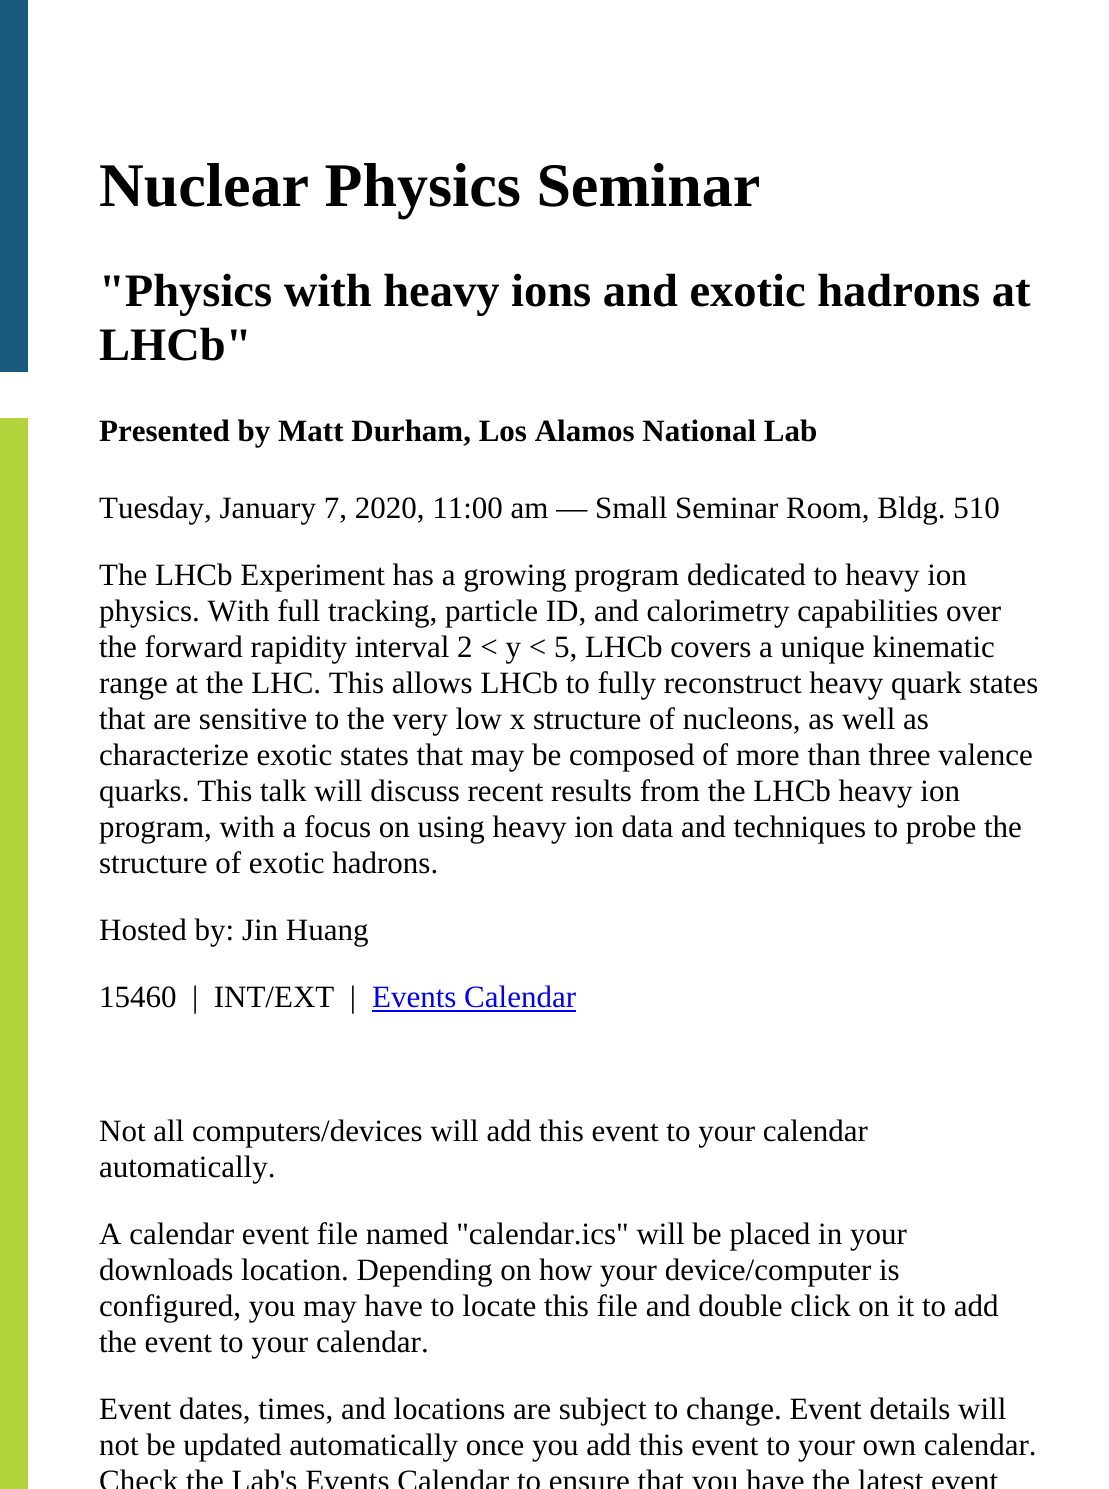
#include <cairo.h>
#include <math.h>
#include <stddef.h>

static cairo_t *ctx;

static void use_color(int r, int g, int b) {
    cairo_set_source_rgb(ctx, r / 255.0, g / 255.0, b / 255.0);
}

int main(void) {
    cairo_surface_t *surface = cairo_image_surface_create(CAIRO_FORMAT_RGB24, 1109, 1489);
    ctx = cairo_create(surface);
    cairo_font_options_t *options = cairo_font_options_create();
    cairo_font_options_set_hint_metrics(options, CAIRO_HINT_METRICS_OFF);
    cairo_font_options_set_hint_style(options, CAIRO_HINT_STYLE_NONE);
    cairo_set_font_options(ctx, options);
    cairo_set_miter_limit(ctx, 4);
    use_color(255, 255, 255);
    cairo_paint(ctx);
    use_color(26, 91, 125);
    cairo_rectangle(ctx, 0, 0, 28, 372);
    cairo_fill(ctx);
    use_color(178, 211, 59);
    cairo_rectangle(ctx, 0, 418, 28, 1071);
    cairo_fill(ctx);
    cairo_select_font_face(ctx, "Liberation Serif", CAIRO_FONT_SLANT_NORMAL, CAIRO_FONT_WEIGHT_BOLD);
    cairo_set_font_size(ctx, 62);
    use_color(0, 0, 0);
    cairo_move_to(ctx, 99, 206);
    cairo_show_text(ctx, "Nuclear Physics Seminar");
    cairo_set_font_size(ctx, 46.5);
    cairo_move_to(ctx, 99, 306);
    cairo_show_text(ctx, "\"Physics with heavy ions and exotic hadrons at");
    cairo_move_to(ctx, 99, 360);
    cairo_show_text(ctx, "LHCb\"");
    cairo_set_font_size(ctx, 31);
    cairo_move_to(ctx, 99, 441);
    cairo_show_text(ctx, "Presented by Matt Durham, Los Alamos National Lab");
    cairo_select_font_face(ctx, "Liberation Serif", CAIRO_FONT_SLANT_NORMAL, CAIRO_FONT_WEIGHT_NORMAL);
    cairo_move_to(ctx, 99, 518);
    cairo_show_text(ctx, "Tuesday, January 7, 2020, 11:00 am — Small Seminar Room, Bldg. 510");
    cairo_move_to(ctx, 99, 585);
    cairo_show_text(ctx, "The LHCb Experiment has a growing program dedicated to heavy ion");
    cairo_move_to(ctx, 99, 621);
    cairo_show_text(ctx, "physics. With full tracking, particle ID, and calorimetry capabilities over");
    cairo_move_to(ctx, 99, 657);
    cairo_show_text(ctx, "the forward rapidity interval 2 < y < 5, LHCb covers a unique kinematic");
    cairo_move_to(ctx, 99, 693);
    cairo_show_text(ctx, "range at the LHC. This allows LHCb to fully reconstruct heavy quark states");
    cairo_move_to(ctx, 99, 729);
    cairo_show_text(ctx, "that are sensitive to the very low x structure of nucleons, as well as");
    cairo_move_to(ctx, 99, 765);
    cairo_show_text(ctx, "characterize exotic states that may be composed of more than three valence");
    cairo_move_to(ctx, 99, 801);
    cairo_show_text(ctx, "quarks. This talk will discuss recent results from the LHCb heavy ion");
    cairo_move_to(ctx, 99, 837);
    cairo_show_text(ctx, "program, with a focus on using heavy ion data and techniques to probe the");
    cairo_move_to(ctx, 99, 873);
    cairo_show_text(ctx, "structure of exotic hadrons.");
    cairo_move_to(ctx, 99, 940);
    cairo_show_text(ctx, "Hosted by: Jin Huang");
    cairo_move_to(ctx, 99, 1007);
    cairo_show_text(ctx, "15460  |  INT/EXT  |");
    use_color(0, 0, 238);
    cairo_move_to(ctx, 372, 1007);
    cairo_show_text(ctx, "Events Calendar");
    cairo_rectangle(ctx, 372, 1010, 204, 2);
    cairo_fill(ctx);
    use_color(0, 0, 0);
    cairo_move_to(ctx, 99, 1141);
    cairo_show_text(ctx, "Not all computers/devices will add this event to your calendar");
    cairo_move_to(ctx, 99, 1177);
    cairo_show_text(ctx, "automatically.");
    cairo_move_to(ctx, 99, 1244);
    cairo_show_text(ctx, "A calendar event file named \"calendar.ics\" will be placed in your");
    cairo_move_to(ctx, 99, 1280);
    cairo_show_text(ctx, "downloads location. Depending on how your device/computer is");
    cairo_move_to(ctx, 99, 1316);
    cairo_show_text(ctx, "configured, you may have to locate this file and double click on it to add");
    cairo_move_to(ctx, 99, 1352);
    cairo_show_text(ctx, "the event to your calendar.");
    cairo_move_to(ctx, 99, 1419);
    cairo_show_text(ctx, "Event dates, times, and locations are subject to change. Event details will");
    cairo_move_to(ctx, 99, 1455);
    cairo_show_text(ctx, "not be updated automatically once you add this event to your own calendar.");
    cairo_move_to(ctx, 99, 1491);
    cairo_show_text(ctx, "Check the Lab's Events Calendar to ensure that you have the latest event");
    cairo_surface_write_to_png(surface, "result.png");
    cairo_font_options_destroy(options);
    cairo_destroy(ctx);
    cairo_surface_destroy(surface);
    return 0;
}
